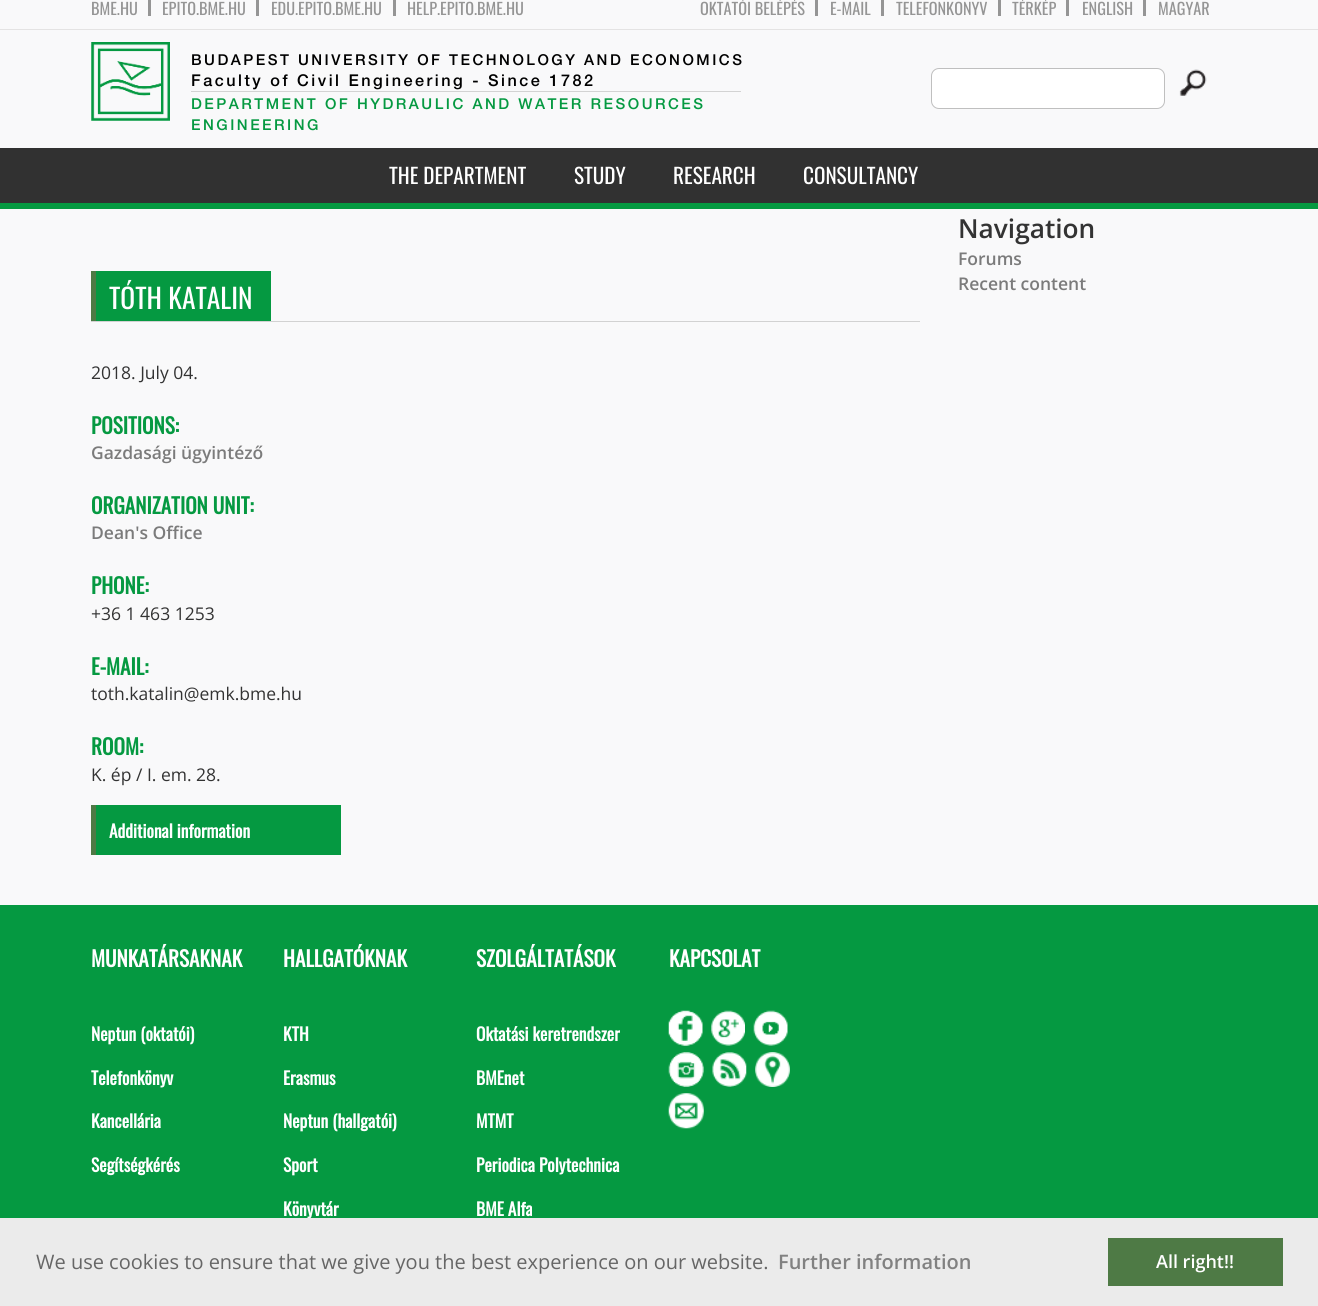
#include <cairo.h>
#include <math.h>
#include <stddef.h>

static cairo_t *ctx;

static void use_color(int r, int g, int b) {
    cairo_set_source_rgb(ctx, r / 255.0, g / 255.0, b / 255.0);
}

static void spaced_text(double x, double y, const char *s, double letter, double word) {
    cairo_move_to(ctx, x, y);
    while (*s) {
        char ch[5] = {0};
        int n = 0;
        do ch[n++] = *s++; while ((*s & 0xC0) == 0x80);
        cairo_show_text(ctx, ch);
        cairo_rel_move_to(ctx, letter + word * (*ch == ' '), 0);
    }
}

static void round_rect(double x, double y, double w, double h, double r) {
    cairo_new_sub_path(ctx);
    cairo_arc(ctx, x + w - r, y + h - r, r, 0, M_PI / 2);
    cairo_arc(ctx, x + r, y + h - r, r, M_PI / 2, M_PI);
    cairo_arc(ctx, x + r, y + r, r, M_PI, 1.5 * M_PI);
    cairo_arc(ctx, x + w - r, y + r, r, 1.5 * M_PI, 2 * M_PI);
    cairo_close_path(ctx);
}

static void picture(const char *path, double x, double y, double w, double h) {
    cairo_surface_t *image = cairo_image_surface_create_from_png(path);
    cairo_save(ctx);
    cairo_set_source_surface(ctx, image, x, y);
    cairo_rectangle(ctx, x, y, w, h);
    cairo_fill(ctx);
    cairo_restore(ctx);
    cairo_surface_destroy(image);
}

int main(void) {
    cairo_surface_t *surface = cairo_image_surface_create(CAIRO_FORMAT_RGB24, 1318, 1306);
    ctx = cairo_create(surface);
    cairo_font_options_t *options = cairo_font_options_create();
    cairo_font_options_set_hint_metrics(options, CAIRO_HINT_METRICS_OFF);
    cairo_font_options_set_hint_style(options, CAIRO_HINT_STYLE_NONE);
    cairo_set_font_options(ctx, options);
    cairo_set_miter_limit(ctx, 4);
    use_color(249, 249, 250);
    cairo_paint(ctx);
    use_color(228, 227, 227);
    cairo_rectangle(ctx, 0, 29, 1318, 1);
    cairo_fill(ctx);
    cairo_select_font_face(ctx, "Oswald", CAIRO_FONT_SLANT_NORMAL, CAIRO_FONT_WEIGHT_NORMAL);
    cairo_set_font_size(ctx, 16.25);
    use_color(149, 149, 149);
    cairo_move_to(ctx, 91, 15);
    cairo_show_text(ctx, "BME.HU");
    cairo_rectangle(ctx, 148, 0, 3, 16);
    cairo_fill(ctx);
    cairo_move_to(ctx, 162, 15);
    cairo_show_text(ctx, "EPITO.BME.HU");
    cairo_rectangle(ctx, 256, 0, 3, 16);
    cairo_fill(ctx);
    cairo_move_to(ctx, 271, 15);
    cairo_show_text(ctx, "EDU.EPITO.BME.HU");
    cairo_rectangle(ctx, 393, 0, 3, 16);
    cairo_fill(ctx);
    cairo_move_to(ctx, 407, 15);
    cairo_show_text(ctx, "HELP.EPITO.BME.HU");
    cairo_move_to(ctx, 700, 15);
    cairo_show_text(ctx, "OKTATÓI BELÉPÉS");
    cairo_rectangle(ctx, 815, 0, 3, 16);
    cairo_fill(ctx);
    cairo_move_to(ctx, 830, 15);
    cairo_show_text(ctx, "E-MAIL");
    cairo_rectangle(ctx, 881, 0, 3, 16);
    cairo_fill(ctx);
    cairo_move_to(ctx, 896, 15);
    cairo_show_text(ctx, "TELEFONKÖNYV");
    cairo_rectangle(ctx, 998, 0, 3, 16);
    cairo_fill(ctx);
    cairo_move_to(ctx, 1012, 15);
    cairo_show_text(ctx, "TÉRKÉP");
    cairo_rectangle(ctx, 1066, 0, 3, 16);
    cairo_fill(ctx);
    cairo_move_to(ctx, 1082, 15);
    cairo_show_text(ctx, "ENGLISH");
    cairo_rectangle(ctx, 1143, 0, 3, 16);
    cairo_fill(ctx);
    cairo_move_to(ctx, 1158, 15);
    cairo_show_text(ctx, "MAGYAR");
    picture("img1.png", 91, 42, 79, 79);
    cairo_select_font_face(ctx, "Helvetica Neue Medium", CAIRO_FONT_SLANT_NORMAL, CAIRO_FONT_WEIGHT_NORMAL);
    cairo_set_font_size(ctx, 15);
    use_color(0, 0, 0);
    spaced_text(191, 65, "BUDAPEST UNIVERSITY OF TECHNOLOGY AND ECONOMICS", 2.5, 0);
    cairo_set_font_size(ctx, 16.25);
    spaced_text(191, 86, "Faculty of Civil Engineering - Since 1782", 2.5, 0);
    use_color(211, 211, 211);
    cairo_rectangle(ctx, 191, 91, 550, 1);
    cairo_fill(ctx);
    cairo_set_font_size(ctx, 15);
    use_color(5, 153, 65);
    spaced_text(191, 109, "DEPARTMENT OF HYDRAULIC AND WATER RESOURCES", 2.5, 0);
    spaced_text(191, 130, "ENGINEERING", 2.5, 0);
    use_color(255, 255, 255);
    round_rect(931.5, 68.5, 233, 40, 7.5);
    cairo_fill_preserve(ctx);
    use_color(191, 191, 191);
    cairo_set_line_width(ctx, 1);
    cairo_stroke(ctx);
    picture("img2.png", 1179, 69, 28, 27);
    use_color(49, 49, 49);
    cairo_rectangle(ctx, 0, 148, 1318, 55);
    cairo_fill(ctx);
    use_color(5, 153, 65);
    cairo_rectangle(ctx, 0, 203, 1318, 6);
    cairo_fill(ctx);
    cairo_select_font_face(ctx, "Oswald", CAIRO_FONT_SLANT_NORMAL, CAIRO_FONT_WEIGHT_NORMAL);
    cairo_set_font_size(ctx, 21.25);
    use_color(255, 255, 255);
    cairo_move_to(ctx, 389, 184);
    cairo_show_text(ctx, "THE DEPARTMENT");
    cairo_move_to(ctx, 574, 184);
    cairo_show_text(ctx, "STUDY");
    cairo_move_to(ctx, 673, 184);
    cairo_show_text(ctx, "RESEARCH");
    cairo_move_to(ctx, 803, 184);
    cairo_show_text(ctx, "CONSULTANCY");
    cairo_select_font_face(ctx, "Open Sans SemiBold", CAIRO_FONT_SLANT_NORMAL, CAIRO_FONT_WEIGHT_NORMAL);
    cairo_set_font_size(ctx, 26.25);
    use_color(51, 51, 51);
    cairo_move_to(ctx, 958, 238);
    cairo_show_text(ctx, "Navigation");
    cairo_set_font_size(ctx, 17.5);
    use_color(123, 123, 123);
    cairo_move_to(ctx, 958, 265);
    cairo_show_text(ctx, "Forums");
    cairo_move_to(ctx, 958, 290);
    cairo_show_text(ctx, "Recent content");
    use_color(210, 210, 210);
    cairo_rectangle(ctx, 91, 321, 829, 1);
    cairo_fill(ctx);
    use_color(5, 153, 65);
    cairo_rectangle(ctx, 96, 271, 175, 50);
    cairo_fill(ctx);
    use_color(78, 122, 69);
    cairo_rectangle(ctx, 91, 271, 5, 50);
    cairo_fill(ctx);
    cairo_select_font_face(ctx, "Oswald", CAIRO_FONT_SLANT_NORMAL, CAIRO_FONT_WEIGHT_NORMAL);
    cairo_set_font_size(ctx, 27.5);
    use_color(255, 255, 255);
    cairo_move_to(ctx, 109, 309);
    cairo_show_text(ctx, "TÓTH KATALIN");
    cairo_select_font_face(ctx, "Open Sans", CAIRO_FONT_SLANT_NORMAL, CAIRO_FONT_WEIGHT_NORMAL);
    cairo_set_font_size(ctx, 17.5);
    use_color(51, 51, 51);
    cairo_move_to(ctx, 91, 379);
    cairo_show_text(ctx, "2018. July 04.");
    cairo_select_font_face(ctx, "Oswald", CAIRO_FONT_SLANT_NORMAL, CAIRO_FONT_WEIGHT_BOLD);
    cairo_set_font_size(ctx, 21.25);
    use_color(5, 153, 65);
    cairo_move_to(ctx, 91, 434);
    cairo_show_text(ctx, "POSITIONS:");
    cairo_select_font_face(ctx, "Open Sans SemiBold", CAIRO_FONT_SLANT_NORMAL, CAIRO_FONT_WEIGHT_NORMAL);
    cairo_set_font_size(ctx, 17.5);
    use_color(123, 123, 123);
    cairo_move_to(ctx, 91, 459);
    cairo_show_text(ctx, "Gazdasági ügyintéző");
    cairo_select_font_face(ctx, "Oswald", CAIRO_FONT_SLANT_NORMAL, CAIRO_FONT_WEIGHT_BOLD);
    cairo_set_font_size(ctx, 21.25);
    use_color(5, 153, 65);
    cairo_move_to(ctx, 91, 514);
    cairo_show_text(ctx, "ORGANIZATION UNIT:");
    cairo_select_font_face(ctx, "Open Sans SemiBold", CAIRO_FONT_SLANT_NORMAL, CAIRO_FONT_WEIGHT_NORMAL);
    cairo_set_font_size(ctx, 17.5);
    use_color(123, 123, 123);
    cairo_move_to(ctx, 91, 539);
    cairo_show_text(ctx, "Dean's Office");
    cairo_select_font_face(ctx, "Oswald", CAIRO_FONT_SLANT_NORMAL, CAIRO_FONT_WEIGHT_BOLD);
    cairo_set_font_size(ctx, 21.25);
    use_color(5, 153, 65);
    cairo_move_to(ctx, 91, 594);
    cairo_show_text(ctx, "PHONE:");
    cairo_select_font_face(ctx, "Open Sans", CAIRO_FONT_SLANT_NORMAL, CAIRO_FONT_WEIGHT_NORMAL);
    cairo_set_font_size(ctx, 17.5);
    use_color(51, 51, 51);
    cairo_move_to(ctx, 91, 620);
    cairo_show_text(ctx, "+36 1 463 1253");
    cairo_select_font_face(ctx, "Oswald", CAIRO_FONT_SLANT_NORMAL, CAIRO_FONT_WEIGHT_BOLD);
    cairo_set_font_size(ctx, 21.25);
    use_color(5, 153, 65);
    cairo_move_to(ctx, 91, 675);
    cairo_show_text(ctx, "E-MAIL:");
    cairo_select_font_face(ctx, "Open Sans", CAIRO_FONT_SLANT_NORMAL, CAIRO_FONT_WEIGHT_NORMAL);
    cairo_set_font_size(ctx, 17.5);
    use_color(51, 51, 51);
    cairo_move_to(ctx, 91, 700);
    cairo_show_text(ctx, "toth.katalin@emk.bme.hu");
    cairo_select_font_face(ctx, "Oswald", CAIRO_FONT_SLANT_NORMAL, CAIRO_FONT_WEIGHT_BOLD);
    cairo_set_font_size(ctx, 21.25);
    use_color(5, 153, 65);
    cairo_move_to(ctx, 91, 755);
    cairo_show_text(ctx, "ROOM:");
    cairo_select_font_face(ctx, "Open Sans", CAIRO_FONT_SLANT_NORMAL, CAIRO_FONT_WEIGHT_NORMAL);
    cairo_set_font_size(ctx, 17.5);
    use_color(51, 51, 51);
    cairo_move_to(ctx, 91, 781);
    cairo_show_text(ctx, "K. ép / I. em. 28.");
    use_color(5, 153, 65);
    cairo_rectangle(ctx, 96, 805, 245, 50);
    cairo_fill(ctx);
    use_color(78, 122, 69);
    cairo_rectangle(ctx, 91, 805, 5, 50);
    cairo_fill(ctx);
    cairo_select_font_face(ctx, "Oswald", CAIRO_FONT_SLANT_NORMAL, CAIRO_FONT_WEIGHT_BOLD);
    use_color(255, 255, 255);
    cairo_move_to(ctx, 109, 838);
    cairo_show_text(ctx, "Additional information");
    use_color(5, 153, 65);
    cairo_rectangle(ctx, 0, 905, 1318, 313);
    cairo_fill(ctx);
    cairo_set_font_size(ctx, 21.25);
    use_color(255, 255, 255);
    cairo_move_to(ctx, 91, 967);
    cairo_show_text(ctx, "MUNKATÁRSAKNAK");
    cairo_set_font_size(ctx, 17.5);
    cairo_move_to(ctx, 91, 1041);
    cairo_show_text(ctx, "Neptun (oktatói)");
    cairo_move_to(ctx, 91, 1085);
    cairo_show_text(ctx, "Telefonkönyv");
    cairo_move_to(ctx, 91, 1128);
    cairo_show_text(ctx, "Kancellária");
    cairo_move_to(ctx, 91, 1172);
    cairo_show_text(ctx, "Segítségkérés");
    cairo_set_font_size(ctx, 21.25);
    cairo_move_to(ctx, 283, 967);
    cairo_show_text(ctx, "HALLGATÓKNAK");
    cairo_set_font_size(ctx, 17.5);
    cairo_move_to(ctx, 283, 1041);
    cairo_show_text(ctx, "KTH");
    cairo_move_to(ctx, 283, 1085);
    cairo_show_text(ctx, "Erasmus");
    cairo_move_to(ctx, 283, 1128);
    cairo_show_text(ctx, "Neptun (hallgatói)");
    cairo_move_to(ctx, 283, 1172);
    cairo_show_text(ctx, "Sport");
    cairo_move_to(ctx, 283, 1216);
    cairo_show_text(ctx, "Könyvtár");
    cairo_set_font_size(ctx, 21.25);
    cairo_move_to(ctx, 476, 967);
    cairo_show_text(ctx, "SZOLGÁLTATÁSOK");
    cairo_set_font_size(ctx, 17.5);
    cairo_move_to(ctx, 476, 1041);
    cairo_show_text(ctx, "Oktatási keretrendszer");
    cairo_move_to(ctx, 476, 1085);
    cairo_show_text(ctx, "BMEnet");
    cairo_move_to(ctx, 476, 1128);
    cairo_show_text(ctx, "MTMT");
    cairo_move_to(ctx, 476, 1172);
    cairo_show_text(ctx, "Periodica Polytechnica");
    cairo_move_to(ctx, 476, 1216);
    cairo_show_text(ctx, "BME Alfa");
    cairo_set_font_size(ctx, 21.25);
    cairo_move_to(ctx, 669, 967);
    cairo_show_text(ctx, "KAPCSOLAT");
    picture("img3.png", 668, 1010, 35, 36);
    picture("img4.png", 711, 1010, 34, 36);
    picture("img5.png", 753, 1010, 35, 36);
    picture("img6.png", 668, 1052, 36, 35);
    picture("img7.png", 712, 1052, 35, 35);
    picture("img8.png", 755, 1052, 35, 35);
    picture("img9.png", 668, 1093, 36, 36);
    use_color(235, 235, 235);
    cairo_rectangle(ctx, 0, 1218, 1318, 88);
    cairo_fill(ctx);
    cairo_select_font_face(ctx, "Open Sans", CAIRO_FONT_SLANT_NORMAL, CAIRO_FONT_WEIGHT_NORMAL);
    cairo_set_font_size(ctx, 20);
    use_color(102, 102, 102);
    cairo_move_to(ctx, 36, 1269);
    cairo_show_text(ctx, "We use cookies to ensure that we give you the best experience on our website.");
    cairo_select_font_face(ctx, "Open Sans SemiBold", CAIRO_FONT_SLANT_NORMAL, CAIRO_FONT_WEIGHT_NORMAL);
    use_color(129, 129, 129);
    cairo_move_to(ctx, 778, 1269);
    cairo_show_text(ctx, "Further information");
    use_color(78, 122, 69);
    cairo_rectangle(ctx, 1108, 1238, 175, 48);
    cairo_fill(ctx);
    cairo_set_font_size(ctx, 18);
    use_color(255, 255, 255);
    cairo_move_to(ctx, 1156, 1268);
    cairo_show_text(ctx, "All right!!");
    cairo_surface_write_to_png(surface, "result.png");
    cairo_font_options_destroy(options);
    cairo_destroy(ctx);
    cairo_surface_destroy(surface);
    return 0;
}
